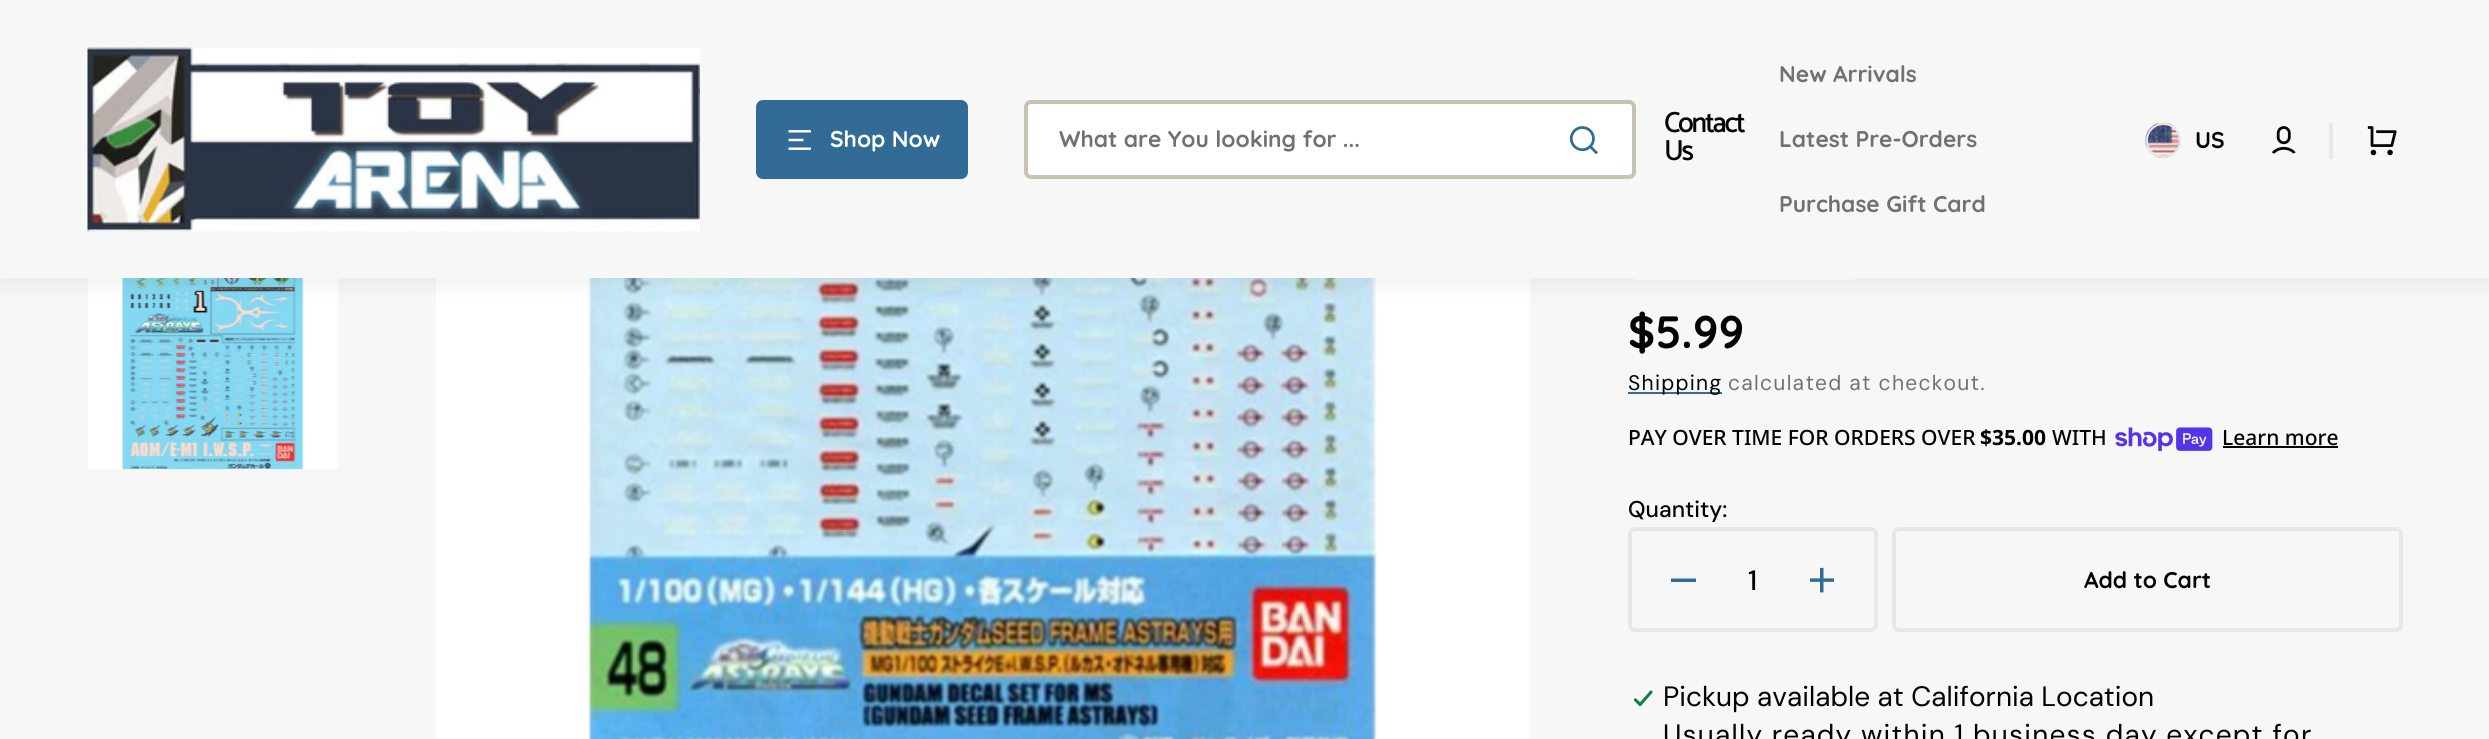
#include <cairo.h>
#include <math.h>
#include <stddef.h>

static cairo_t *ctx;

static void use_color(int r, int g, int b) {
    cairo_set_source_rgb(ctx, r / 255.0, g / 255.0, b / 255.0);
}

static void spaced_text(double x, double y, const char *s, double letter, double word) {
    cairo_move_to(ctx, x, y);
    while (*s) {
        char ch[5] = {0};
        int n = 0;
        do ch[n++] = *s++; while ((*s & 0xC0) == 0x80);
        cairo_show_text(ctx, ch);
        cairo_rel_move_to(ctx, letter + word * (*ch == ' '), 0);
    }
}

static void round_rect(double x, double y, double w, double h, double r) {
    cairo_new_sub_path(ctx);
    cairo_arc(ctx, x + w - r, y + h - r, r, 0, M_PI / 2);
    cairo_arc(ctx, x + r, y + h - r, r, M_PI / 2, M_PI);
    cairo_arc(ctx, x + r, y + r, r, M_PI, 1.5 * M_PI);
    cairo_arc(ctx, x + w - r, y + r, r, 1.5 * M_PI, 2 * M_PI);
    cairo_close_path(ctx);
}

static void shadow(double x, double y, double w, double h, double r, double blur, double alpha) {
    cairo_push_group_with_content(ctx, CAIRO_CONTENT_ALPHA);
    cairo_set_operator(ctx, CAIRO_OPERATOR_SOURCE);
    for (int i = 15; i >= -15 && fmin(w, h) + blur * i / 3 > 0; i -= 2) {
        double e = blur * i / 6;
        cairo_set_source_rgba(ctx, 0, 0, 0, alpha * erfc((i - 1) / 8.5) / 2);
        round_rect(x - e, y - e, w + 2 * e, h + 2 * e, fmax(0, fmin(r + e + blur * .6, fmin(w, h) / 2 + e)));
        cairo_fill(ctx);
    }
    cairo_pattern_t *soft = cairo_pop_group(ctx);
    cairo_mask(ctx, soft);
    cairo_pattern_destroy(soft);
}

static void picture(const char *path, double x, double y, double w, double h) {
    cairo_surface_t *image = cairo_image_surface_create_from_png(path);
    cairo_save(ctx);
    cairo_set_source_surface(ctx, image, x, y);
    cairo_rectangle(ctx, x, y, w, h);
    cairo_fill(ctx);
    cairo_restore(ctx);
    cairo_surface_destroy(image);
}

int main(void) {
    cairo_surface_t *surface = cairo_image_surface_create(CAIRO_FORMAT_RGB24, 2489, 739);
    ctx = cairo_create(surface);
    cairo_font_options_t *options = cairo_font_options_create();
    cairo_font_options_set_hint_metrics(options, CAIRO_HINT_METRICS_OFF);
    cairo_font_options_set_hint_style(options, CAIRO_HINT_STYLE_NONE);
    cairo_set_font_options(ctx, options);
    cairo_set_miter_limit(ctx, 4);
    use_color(247, 247, 247);
    cairo_paint(ctx);
    use_color(255, 255, 255);
    cairo_rectangle(ctx, 88, 278, 250, 191);
    cairo_fill(ctx);
    picture("img7.png", 122, 278, 182, 192);
    cairo_rectangle(ctx, 436, 278, 1094, 461);
    cairo_fill(ctx);
    picture("img8.png", 588, 278, 789, 461);
    picture("img9.png", 1633, 278, 224, 2);
    use_color(1, 1, 1);
    shadow(0, 9, 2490, 278, 0, 9, 0.05);
    use_color(247, 247, 247);
    cairo_rectangle(ctx, 0, 2, 2489, 276);
    cairo_fill(ctx);
    picture("img1.png", 87, 47, 613, 185);
    use_color(50, 108, 150);
    round_rect(756, 100, 212, 79, 7);
    cairo_fill(ctx);
    picture("img2.png", 788, 130, 23, 20);
    cairo_select_font_face(ctx, "Quicksand", CAIRO_FONT_SLANT_NORMAL, CAIRO_FONT_WEIGHT_BOLD);
    cairo_set_font_size(ctx, 22.75);
    use_color(255, 255, 255);
    cairo_move_to(ctx, 830, 147);
    cairo_show_text(ctx, "Shop Now");
    round_rect(1026, 102, 608, 75, 5);
    cairo_fill_preserve(ctx);
    use_color(199, 194, 177);
    cairo_set_line_width(ctx, 4);
    cairo_stroke(ctx);
    use_color(113, 113, 113);
    cairo_move_to(ctx, 1059, 147);
    cairo_show_text(ctx, "What are You looking for ...");
    picture("img3.png", 1569, 126, 29, 29);
    cairo_select_font_face(ctx, "Catamaran", CAIRO_FONT_SLANT_NORMAL, CAIRO_FONT_WEIGHT_BOLD);
    cairo_set_font_size(ctx, 28);
    use_color(4, 4, 4);
    spaced_text(1664, 132, "Contact", -1.5, 0);
    spaced_text(1664, 160, "Us", -1.5, 0);
    cairo_select_font_face(ctx, "Quicksand", CAIRO_FONT_SLANT_NORMAL, CAIRO_FONT_WEIGHT_BOLD);
    cairo_set_font_size(ctx, 22.75);
    use_color(113, 113, 113);
    cairo_move_to(ctx, 1779, 82);
    cairo_show_text(ctx, "New Arrivals");
    cairo_move_to(ctx, 1779, 147);
    cairo_show_text(ctx, "Latest Pre-Orders");
    cairo_move_to(ctx, 1779, 212);
    cairo_show_text(ctx, "Purchase Gift Card");
    picture("img4.png", 2145, 122, 36, 36);
    cairo_arc(ctx, 2163.5, 140.5, 16.5, 0, 2 * M_PI);
    use_color(231, 231, 231);
    cairo_set_line_width(ctx, 2);
    cairo_stroke(ctx);
    use_color(4, 4, 4);
    cairo_move_to(ctx, 2195, 148);
    cairo_show_text(ctx, "US");
    picture("img5.png", 2271, 126, 25, 28);
    use_color(231, 231, 231);
    cairo_rectangle(ctx, 2329, 123, 4, 36);
    cairo_fill(ctx);
    picture("img6.png", 2367, 126, 30, 30);
    cairo_set_font_size(ctx, 45.5);
    use_color(4, 4, 4);
    cairo_move_to(ctx, 1628, 348);
    cairo_show_text(ctx, "$5.99");
    use_color(50, 108, 150);
    cairo_rectangle(ctx, 1628, 392, 94, 2);
    cairo_fill(ctx);
    cairo_select_font_face(ctx, "DM Sans", CAIRO_FONT_SLANT_NORMAL, CAIRO_FONT_WEIGHT_NORMAL);
    cairo_set_font_size(ctx, 21);
    use_color(4, 4, 4);
    spaced_text(1628, 390, "Shipping", 1.2, 0);
    use_color(113, 113, 113);
    spaced_text(1728, 390, "calculated at checkout.", 1.2, 0);
    cairo_select_font_face(ctx, "Noto Sans Medium", CAIRO_FONT_SLANT_NORMAL, CAIRO_FONT_WEIGHT_NORMAL);
    use_color(4, 4, 4);
    cairo_move_to(ctx, 1628, 445);
    cairo_show_text(ctx, "PAY OVER TIME FOR ORDERS OVER");
    cairo_select_font_face(ctx, "Noto Sans", CAIRO_FONT_SLANT_NORMAL, CAIRO_FONT_WEIGHT_BOLD);
    cairo_move_to(ctx, 1980, 445);
    cairo_show_text(ctx, "$35.00");
    cairo_select_font_face(ctx, "Noto Sans Medium", CAIRO_FONT_SLANT_NORMAL, CAIRO_FONT_WEIGHT_NORMAL);
    cairo_move_to(ctx, 2052, 445);
    cairo_show_text(ctx, "WITH");
    picture("img10.png", 2115, 427, 98, 24);
    cairo_move_to(ctx, 2222, 445);
    cairo_show_text(ctx, "Learn more");
    cairo_rectangle(ctx, 2223, 446, 115, 2);
    cairo_fill(ctx);
    cairo_select_font_face(ctx, "DM Sans Medium", CAIRO_FONT_SLANT_NORMAL, CAIRO_FONT_WEIGHT_NORMAL);
    cairo_set_font_size(ctx, 22.75);
    cairo_move_to(ctx, 1628, 517);
    cairo_show_text(ctx, "Quantity:");
    round_rect(1630, 529, 246, 101, 5);
    use_color(231, 231, 231);
    cairo_set_line_width(ctx, 4);
    cairo_stroke(ctx);
    use_color(50, 108, 150);
    cairo_new_path(ctx);
    cairo_move_to(ctx, 1682, 578.5);
    cairo_line_to(ctx, 1696, 578.5);
    cairo_line_to(ctx, 1696, 582);
    cairo_line_to(ctx, 1671, 582);
    cairo_line_to(ctx, 1671, 578.5);
    cairo_close_path(ctx);
    cairo_fill(ctx);
    cairo_select_font_face(ctx, "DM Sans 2 Medium", CAIRO_FONT_SLANT_NORMAL, CAIRO_FONT_WEIGHT_NORMAL);
    cairo_set_font_size(ctx, 28);
    use_color(4, 4, 4);
    cairo_move_to(ctx, 1748, 590);
    cairo_show_text(ctx, "1");
    picture("img11.png", 1810, 567, 24, 26);
    round_rect(1894, 529, 507, 101, 5);
    use_color(231, 231, 231);
    cairo_stroke(ctx);
    cairo_select_font_face(ctx, "Quicksand", CAIRO_FONT_SLANT_NORMAL, CAIRO_FONT_WEIGHT_BOLD);
    cairo_set_font_size(ctx, 22.75);
    use_color(4, 4, 4);
    cairo_move_to(ctx, 2084, 588);
    cairo_show_text(ctx, "Add to Cart");
    picture("img12.png", 1632, 689, 22, 19);
    cairo_select_font_face(ctx, "DM Sans 2", CAIRO_FONT_SLANT_NORMAL, CAIRO_FONT_WEIGHT_NORMAL);
    cairo_set_font_size(ctx, 28);
    cairo_move_to(ctx, 1663, 706);
    cairo_show_text(ctx, "Pickup available at California Location");
    spaced_text(1663, 744, "Usually ready within 1 business day except for", 1.2, 0);
    cairo_surface_write_to_png(surface, "result.png");
    cairo_font_options_destroy(options);
    cairo_destroy(ctx);
    cairo_surface_destroy(surface);
    return 0;
}
